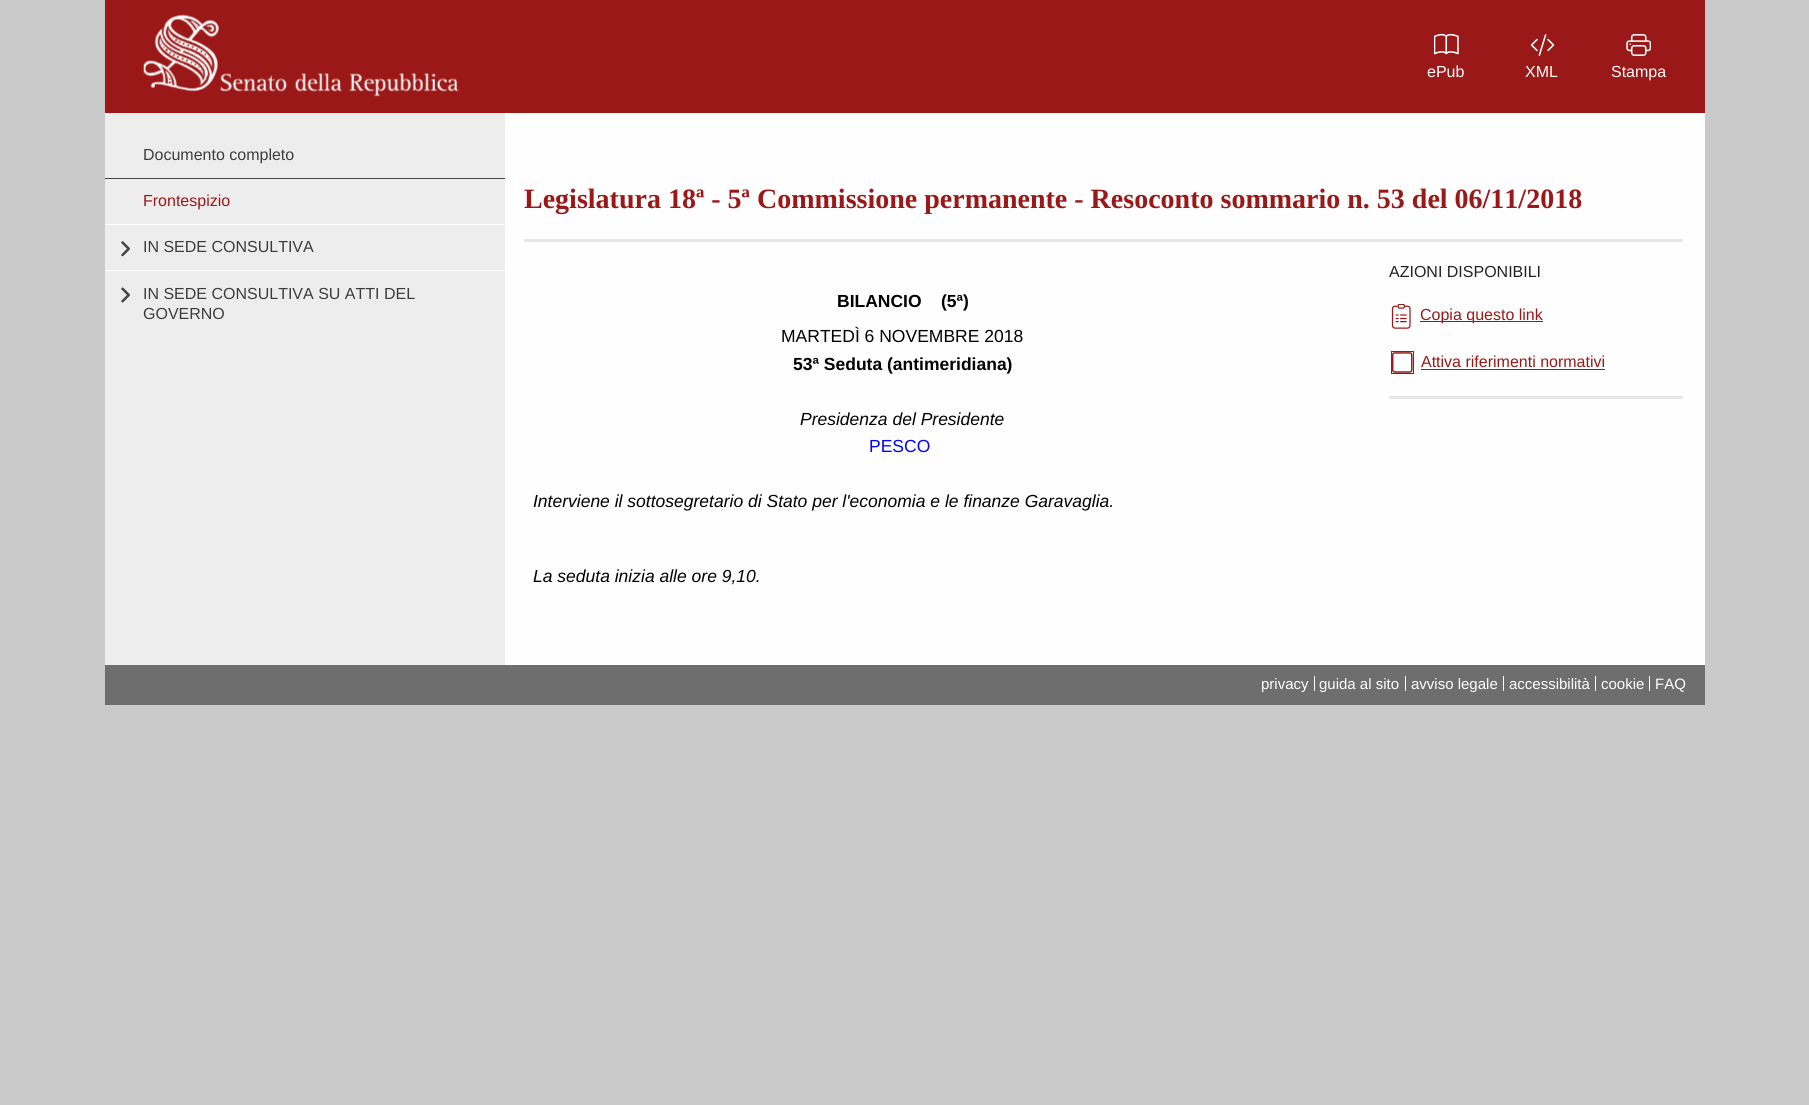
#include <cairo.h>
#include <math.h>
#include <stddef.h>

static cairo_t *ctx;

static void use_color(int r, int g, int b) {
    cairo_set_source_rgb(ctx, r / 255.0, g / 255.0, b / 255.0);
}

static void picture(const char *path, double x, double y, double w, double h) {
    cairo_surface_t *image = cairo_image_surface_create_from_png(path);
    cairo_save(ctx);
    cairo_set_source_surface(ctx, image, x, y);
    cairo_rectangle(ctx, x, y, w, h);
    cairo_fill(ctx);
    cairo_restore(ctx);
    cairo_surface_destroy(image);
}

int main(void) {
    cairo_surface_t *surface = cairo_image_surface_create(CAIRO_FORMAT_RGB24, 1809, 1105);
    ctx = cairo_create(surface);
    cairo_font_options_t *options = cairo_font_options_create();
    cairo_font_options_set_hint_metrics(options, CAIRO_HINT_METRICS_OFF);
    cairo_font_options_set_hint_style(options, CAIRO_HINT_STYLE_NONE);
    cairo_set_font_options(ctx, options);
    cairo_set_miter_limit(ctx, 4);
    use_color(202, 202, 202);
    cairo_paint(ctx);
    use_color(155, 24, 24);
    cairo_rectangle(ctx, 105, 0, 1600, 113);
    cairo_fill(ctx);
    picture("img1.png", 143, 14, 316, 83);
    picture("img2.png", 1434, 33, 25, 22);
    cairo_select_font_face(ctx, "Liberation Sans", CAIRO_FONT_SLANT_NORMAL, CAIRO_FONT_WEIGHT_NORMAL);
    cairo_set_font_size(ctx, 16);
    use_color(254, 254, 254);
    cairo_move_to(ctx, 1427, 77);
    cairo_show_text(ctx, "ePub");
    picture("img3.png", 1530, 34, 25, 22);
    cairo_move_to(ctx, 1525, 77);
    cairo_show_text(ctx, "XML");
    picture("img4.png", 1626, 34, 25, 22);
    cairo_move_to(ctx, 1611, 77);
    cairo_show_text(ctx, "Stampa");
    cairo_rectangle(ctx, 505, 113, 1200, 552);
    cairo_fill(ctx);
    use_color(237, 237, 237);
    cairo_rectangle(ctx, 105, 113, 400, 552);
    cairo_fill(ctx);
    use_color(68, 68, 68);
    cairo_rectangle(ctx, 105, 178, 400, 1);
    cairo_fill(ctx);
    use_color(61, 61, 61);
    cairo_move_to(ctx, 143, 160);
    cairo_show_text(ctx, "Documento completo");
    use_color(254, 254, 254);
    cairo_rectangle(ctx, 105, 224, 400, 1);
    cairo_fill(ctx);
    use_color(155, 24, 24);
    cairo_move_to(ctx, 143, 206);
    cairo_show_text(ctx, "Frontespizio");
    use_color(254, 254, 254);
    cairo_rectangle(ctx, 105, 270, 400, 1);
    cairo_fill(ctx);
    picture("img5.png", 121, 241, 9, 16);
    use_color(61, 61, 61);
    cairo_move_to(ctx, 143, 252);
    cairo_show_text(ctx, "IN SEDE CONSULTIVA");
    picture("img6.png", 121, 287, 9, 16);
    cairo_move_to(ctx, 143, 299);
    cairo_show_text(ctx, "IN SEDE CONSULTIVA SU ATTI DEL");
    cairo_move_to(ctx, 143, 319);
    cairo_show_text(ctx, "GOVERNO");
    use_color(231, 231, 231);
    cairo_rectangle(ctx, 524, 239, 1159, 3);
    cairo_fill(ctx);
    cairo_select_font_face(ctx, "Liberation Serif", CAIRO_FONT_SLANT_NORMAL, CAIRO_FONT_WEIGHT_BOLD);
    cairo_set_font_size(ctx, 28);
    use_color(155, 24, 24);
    cairo_move_to(ctx, 524, 208);
    cairo_show_text(ctx, "Legislatura 18ª - 5ª Commissione permanente - Resoconto sommario n. 53 del 06/11/2018");
    cairo_select_font_face(ctx, "Liberation Sans", CAIRO_FONT_SLANT_NORMAL, CAIRO_FONT_WEIGHT_BOLD);
    cairo_set_font_size(ctx, 17.5);
    use_color(0, 0, 0);
    cairo_move_to(ctx, 837, 307);
    cairo_show_text(ctx, "BILANCIO    (5ª)");
    cairo_select_font_face(ctx, "Liberation Sans", CAIRO_FONT_SLANT_NORMAL, CAIRO_FONT_WEIGHT_NORMAL);
    cairo_move_to(ctx, 781, 342);
    cairo_show_text(ctx, "MARTEDÌ 6 NOVEMBRE 2018");
    cairo_select_font_face(ctx, "Liberation Sans", CAIRO_FONT_SLANT_NORMAL, CAIRO_FONT_WEIGHT_BOLD);
    cairo_move_to(ctx, 793, 370);
    cairo_show_text(ctx, "53ª Seduta (antimeridiana)");
    cairo_select_font_face(ctx, "Liberation Sans", CAIRO_FONT_SLANT_ITALIC, CAIRO_FONT_WEIGHT_NORMAL);
    cairo_move_to(ctx, 800, 425);
    cairo_show_text(ctx, "Presidenza del Presidente");
    cairo_select_font_face(ctx, "Liberation Sans", CAIRO_FONT_SLANT_NORMAL, CAIRO_FONT_WEIGHT_NORMAL);
    use_color(0, 0, 255);
    cairo_move_to(ctx, 869, 452);
    cairo_show_text(ctx, "PESCO");
    cairo_select_font_face(ctx, "Liberation Sans", CAIRO_FONT_SLANT_ITALIC, CAIRO_FONT_WEIGHT_NORMAL);
    use_color(0, 0, 0);
    cairo_move_to(ctx, 533, 507);
    cairo_show_text(ctx, "Interviene il sottosegretario di Stato per l'economia e le finanze Garavaglia.");
    cairo_move_to(ctx, 533, 582);
    cairo_show_text(ctx, "La seduta inizia alle ore 9,10.");
    use_color(231, 231, 231);
    cairo_rectangle(ctx, 1389, 396, 294, 3);
    cairo_fill(ctx);
    cairo_select_font_face(ctx, "Liberation Sans", CAIRO_FONT_SLANT_NORMAL, CAIRO_FONT_WEIGHT_NORMAL);
    cairo_set_font_size(ctx, 16);
    use_color(34, 34, 34);
    cairo_move_to(ctx, 1389, 277);
    cairo_show_text(ctx, "AZIONI DISPONIBILI");
    picture("img7.png", 1391, 304, 20, 25);
    use_color(155, 24, 24);
    cairo_rectangle(ctx, 1420, 321, 123, 1);
    cairo_fill(ctx);
    cairo_move_to(ctx, 1420, 320);
    cairo_show_text(ctx, "Copia questo link");
    picture("img8.png", 1392, 352, 21, 21);
    cairo_rectangle(ctx, 1391.5, 351.5, 22, 22);
    cairo_set_line_width(ctx, 1);
    cairo_stroke(ctx);
    cairo_move_to(ctx, 1421, 367);
    cairo_show_text(ctx, "Attiva riferimenti normativi");
    cairo_rectangle(ctx, 1421, 369, 184, 1);
    cairo_fill(ctx);
    use_color(110, 110, 110);
    cairo_rectangle(ctx, 105, 665, 1600, 40);
    cairo_fill(ctx);
    cairo_set_font_size(ctx, 15);
    use_color(254, 254, 254);
    cairo_move_to(ctx, 1261, 689);
    cairo_show_text(ctx, "privacy");
    cairo_rectangle(ctx, 1314, 676, 1, 15);
    cairo_fill(ctx);
    cairo_move_to(ctx, 1319, 689);
    cairo_show_text(ctx, "guida al sito");
    cairo_rectangle(ctx, 1405, 676, 1, 15);
    cairo_fill(ctx);
    cairo_move_to(ctx, 1411, 689);
    cairo_show_text(ctx, "avviso legale");
    cairo_rectangle(ctx, 1503, 676, 1, 15);
    cairo_fill(ctx);
    cairo_move_to(ctx, 1509, 689);
    cairo_show_text(ctx, "accessibilità");
    cairo_rectangle(ctx, 1595, 676, 1, 15);
    cairo_fill(ctx);
    cairo_move_to(ctx, 1601, 689);
    cairo_show_text(ctx, "cookie");
    cairo_rectangle(ctx, 1649, 676, 1, 15);
    cairo_fill(ctx);
    cairo_move_to(ctx, 1655, 689);
    cairo_show_text(ctx, "FAQ");
    cairo_surface_write_to_png(surface, "result.png");
    cairo_font_options_destroy(options);
    cairo_destroy(ctx);
    cairo_surface_destroy(surface);
    return 0;
}
